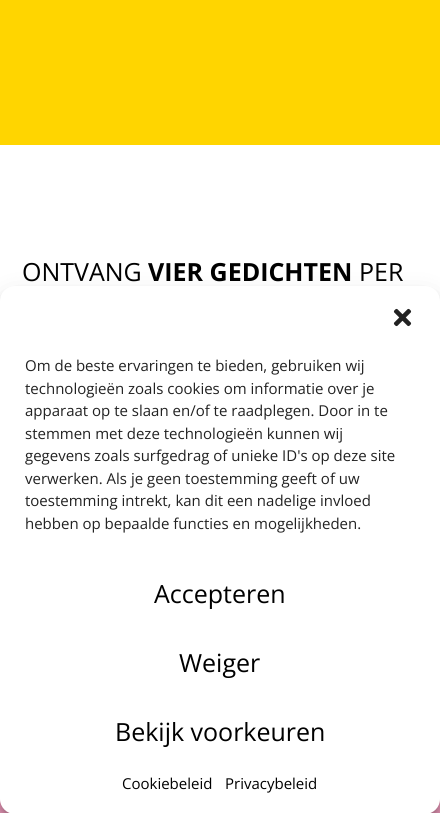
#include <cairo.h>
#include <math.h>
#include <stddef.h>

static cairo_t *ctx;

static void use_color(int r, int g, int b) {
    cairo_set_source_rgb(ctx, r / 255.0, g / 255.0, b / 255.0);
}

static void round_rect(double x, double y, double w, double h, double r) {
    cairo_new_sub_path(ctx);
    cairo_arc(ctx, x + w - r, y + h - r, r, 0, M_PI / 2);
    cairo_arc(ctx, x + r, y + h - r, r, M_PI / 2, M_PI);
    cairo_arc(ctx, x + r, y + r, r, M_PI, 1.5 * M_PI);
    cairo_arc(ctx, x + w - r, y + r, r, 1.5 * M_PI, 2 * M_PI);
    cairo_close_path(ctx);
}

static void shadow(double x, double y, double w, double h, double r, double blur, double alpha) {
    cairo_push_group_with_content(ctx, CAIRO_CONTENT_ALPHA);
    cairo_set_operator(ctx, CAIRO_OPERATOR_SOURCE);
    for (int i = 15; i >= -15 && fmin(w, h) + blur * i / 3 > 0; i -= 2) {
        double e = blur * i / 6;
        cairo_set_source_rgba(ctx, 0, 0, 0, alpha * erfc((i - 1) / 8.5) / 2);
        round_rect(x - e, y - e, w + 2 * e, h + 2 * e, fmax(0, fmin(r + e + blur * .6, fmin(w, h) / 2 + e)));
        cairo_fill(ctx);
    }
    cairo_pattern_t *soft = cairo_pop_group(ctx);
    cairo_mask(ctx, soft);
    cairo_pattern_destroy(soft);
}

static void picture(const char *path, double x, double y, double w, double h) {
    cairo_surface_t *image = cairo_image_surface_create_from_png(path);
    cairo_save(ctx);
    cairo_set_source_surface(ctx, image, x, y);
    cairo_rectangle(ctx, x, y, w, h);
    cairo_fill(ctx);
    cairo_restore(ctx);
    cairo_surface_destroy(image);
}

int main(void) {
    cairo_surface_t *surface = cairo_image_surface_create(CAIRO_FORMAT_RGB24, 440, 813);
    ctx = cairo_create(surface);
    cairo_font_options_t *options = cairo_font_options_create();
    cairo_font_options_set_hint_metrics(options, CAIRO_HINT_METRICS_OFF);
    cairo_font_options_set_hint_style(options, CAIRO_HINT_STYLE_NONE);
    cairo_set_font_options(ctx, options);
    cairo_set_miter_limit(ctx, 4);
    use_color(255, 213, 0);
    cairo_paint(ctx);
    use_color(255, 255, 255);
    cairo_rectangle(ctx, 0, 145, 440, 156);
    cairo_fill(ctx);
    cairo_select_font_face(ctx, "Open Sans", CAIRO_FONT_SLANT_NORMAL, CAIRO_FONT_WEIGHT_NORMAL);
    cairo_set_font_size(ctx, 25);
    use_color(0, 0, 0);
    cairo_move_to(ctx, 22, 281);
    cairo_show_text(ctx, "ONTVANG");
    cairo_select_font_face(ctx, "Open Sans", CAIRO_FONT_SLANT_NORMAL, CAIRO_FONT_WEIGHT_BOLD);
    cairo_move_to(ctx, 148, 281);
    cairo_show_text(ctx, "VIER GEDICHTEN");
    cairo_select_font_face(ctx, "Open Sans", CAIRO_FONT_SLANT_NORMAL, CAIRO_FONT_WEIGHT_NORMAL);
    cairo_move_to(ctx, 359, 281);
    cairo_show_text(ctx, "PER");
    use_color(242, 157, 191);
    cairo_rectangle(ctx, 0, 799, 440, 14);
    cairo_fill(ctx);
    use_color(0, 0, 0);
    shadow(0, 294, 440, 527, 15, 4, 0.23);
    shadow(0, 299, 440, 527, 15, 12.5, 0.19);
    use_color(255, 255, 255);
    round_rect(0, 286, 440, 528, 15);
    cairo_fill(ctx);
    picture("img1.png", 393, 308, 19, 19);
    cairo_set_font_size(ctx, 15);
    use_color(34, 34, 34);
    cairo_move_to(ctx, 25, 371);
    cairo_show_text(ctx, "Om de beste ervaringen te bieden, gebruiken wij");
    cairo_move_to(ctx, 25, 394);
    cairo_show_text(ctx, "technologieën zoals cookies om informatie over je");
    cairo_move_to(ctx, 25, 416);
    cairo_show_text(ctx, "apparaat op te slaan en/of te raadplegen. Door in te");
    cairo_move_to(ctx, 25, 439);
    cairo_show_text(ctx, "stemmen met deze technologieën kunnen wij");
    cairo_move_to(ctx, 25, 461);
    cairo_show_text(ctx, "gegevens zoals surfgedrag of unieke ID's op deze site");
    cairo_move_to(ctx, 25, 484);
    cairo_show_text(ctx, "verwerken. Als je geen toestemming geeft of uw");
    cairo_move_to(ctx, 25, 506);
    cairo_show_text(ctx, "toestemming intrekt, kan dit een nadelige invloed");
    cairo_move_to(ctx, 25, 529);
    cairo_show_text(ctx, "hebben op bepaalde functies en mogelijkheden.");
    cairo_set_font_size(ctx, 25);
    use_color(0, 0, 0);
    cairo_move_to(ctx, 154, 603);
    cairo_show_text(ctx, "Accepteren");
    cairo_move_to(ctx, 179, 672);
    cairo_show_text(ctx, "Weiger");
    cairo_move_to(ctx, 115, 741);
    cairo_show_text(ctx, "Bekijk voorkeuren");
    cairo_set_font_size(ctx, 15);
    cairo_move_to(ctx, 122, 789);
    cairo_show_text(ctx, "Cookiebeleid");
    cairo_move_to(ctx, 225, 789);
    cairo_show_text(ctx, "Privacybeleid");
    cairo_surface_write_to_png(surface, "result.png");
    cairo_font_options_destroy(options);
    cairo_destroy(ctx);
    cairo_surface_destroy(surface);
    return 0;
}
